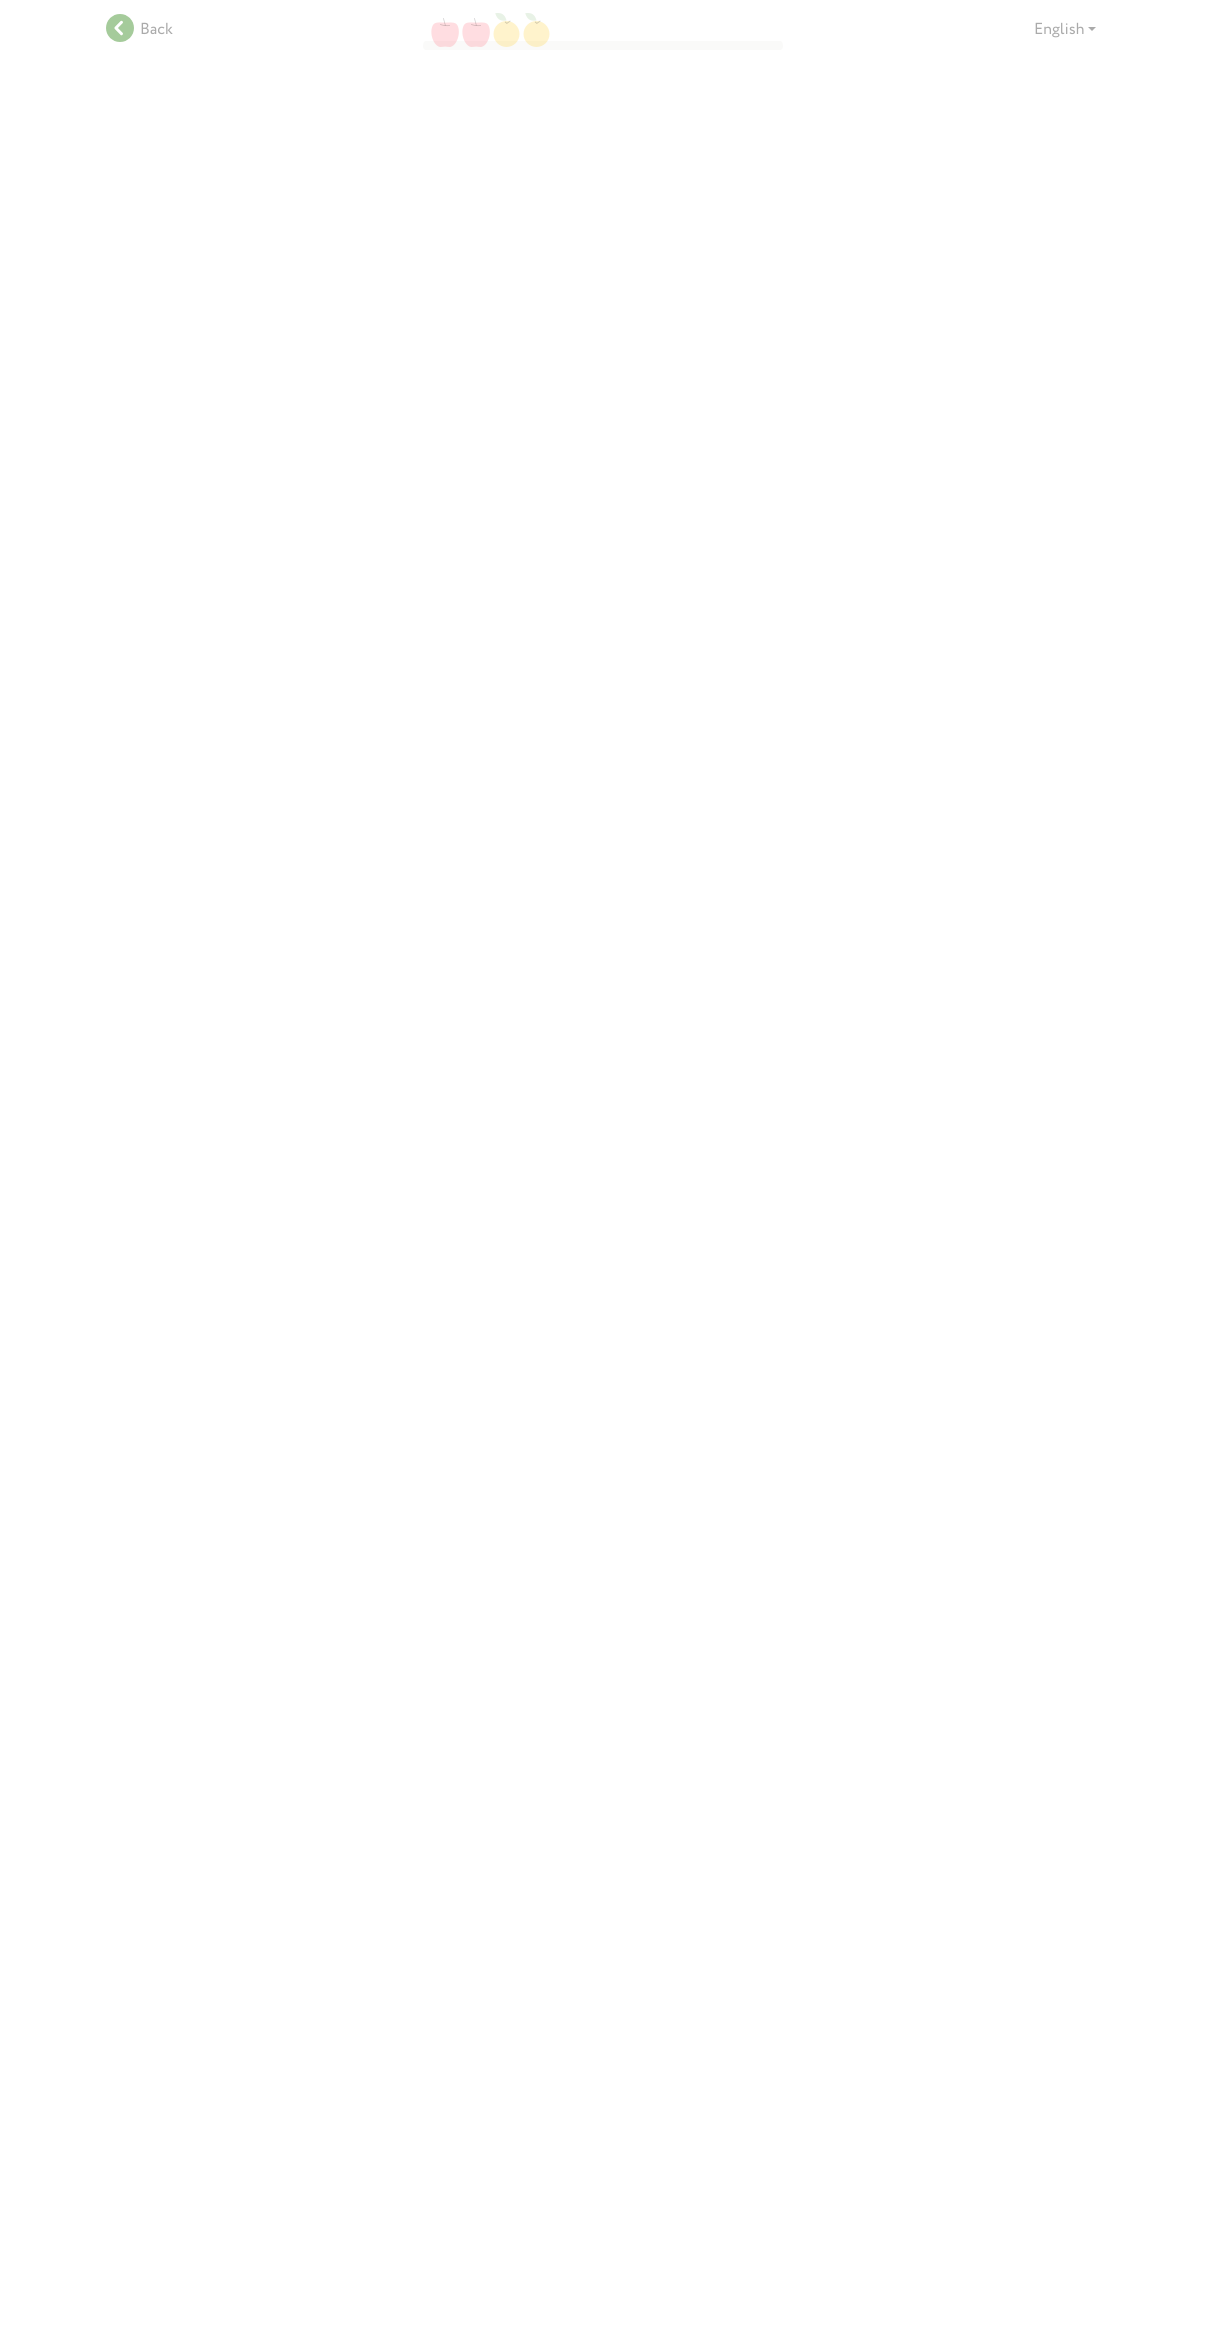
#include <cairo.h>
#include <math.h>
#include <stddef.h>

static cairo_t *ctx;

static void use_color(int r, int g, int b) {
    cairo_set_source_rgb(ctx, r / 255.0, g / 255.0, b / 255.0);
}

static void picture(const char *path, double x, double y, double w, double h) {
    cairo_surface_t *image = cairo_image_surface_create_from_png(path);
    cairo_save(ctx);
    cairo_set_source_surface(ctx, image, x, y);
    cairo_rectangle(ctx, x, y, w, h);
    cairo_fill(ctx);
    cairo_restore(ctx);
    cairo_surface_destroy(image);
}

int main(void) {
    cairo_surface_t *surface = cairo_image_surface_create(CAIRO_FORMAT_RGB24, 1205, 2336);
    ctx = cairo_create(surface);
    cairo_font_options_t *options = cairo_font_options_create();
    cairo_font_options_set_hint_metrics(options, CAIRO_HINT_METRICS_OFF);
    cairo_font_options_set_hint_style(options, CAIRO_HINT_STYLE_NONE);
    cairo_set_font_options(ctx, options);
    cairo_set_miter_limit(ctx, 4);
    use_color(255, 255, 255);
    cairo_paint(ctx);
    picture("img1.png", 106, 14, 28, 28);
    picture("img2.png", 141, 22, 32, 13);
    use_color(250, 250, 249);
    cairo_new_path(ctx);
    cairo_move_to(ctx, 423, 46);
    cairo_curve_to(ctx, 423, 43, 424, 41, 426, 41);
    cairo_line_to(ctx, 780, 41);
    cairo_curve_to(ctx, 782, 41, 783, 43, 783, 46);
    cairo_curve_to(ctx, 783, 48, 782, 50, 780, 50);
    cairo_line_to(ctx, 426, 50);
    cairo_curve_to(ctx, 424, 50, 423, 48, 423, 46);
    cairo_close_path(ctx);
    cairo_fill(ctx);
    picture("img3.png", 431, 18, 28, 29);
    picture("img3.png", 462, 18, 28, 29);
    picture("img4.png", 493, 13, 27, 34);
    picture("img4.png", 523, 13, 27, 34);
    picture("img5.png", 1035, 22, 49, 16);
    use_color(170, 170, 170);
    cairo_new_path(ctx);
    cairo_move_to(ctx, 1088, 27);
    cairo_line_to(ctx, 1096, 27);
    cairo_line_to(ctx, 1092, 31);
    cairo_close_path(ctx);
    cairo_fill(ctx);
    cairo_surface_write_to_png(surface, "result.png");
    cairo_font_options_destroy(options);
    cairo_destroy(ctx);
    cairo_surface_destroy(surface);
    return 0;
}
